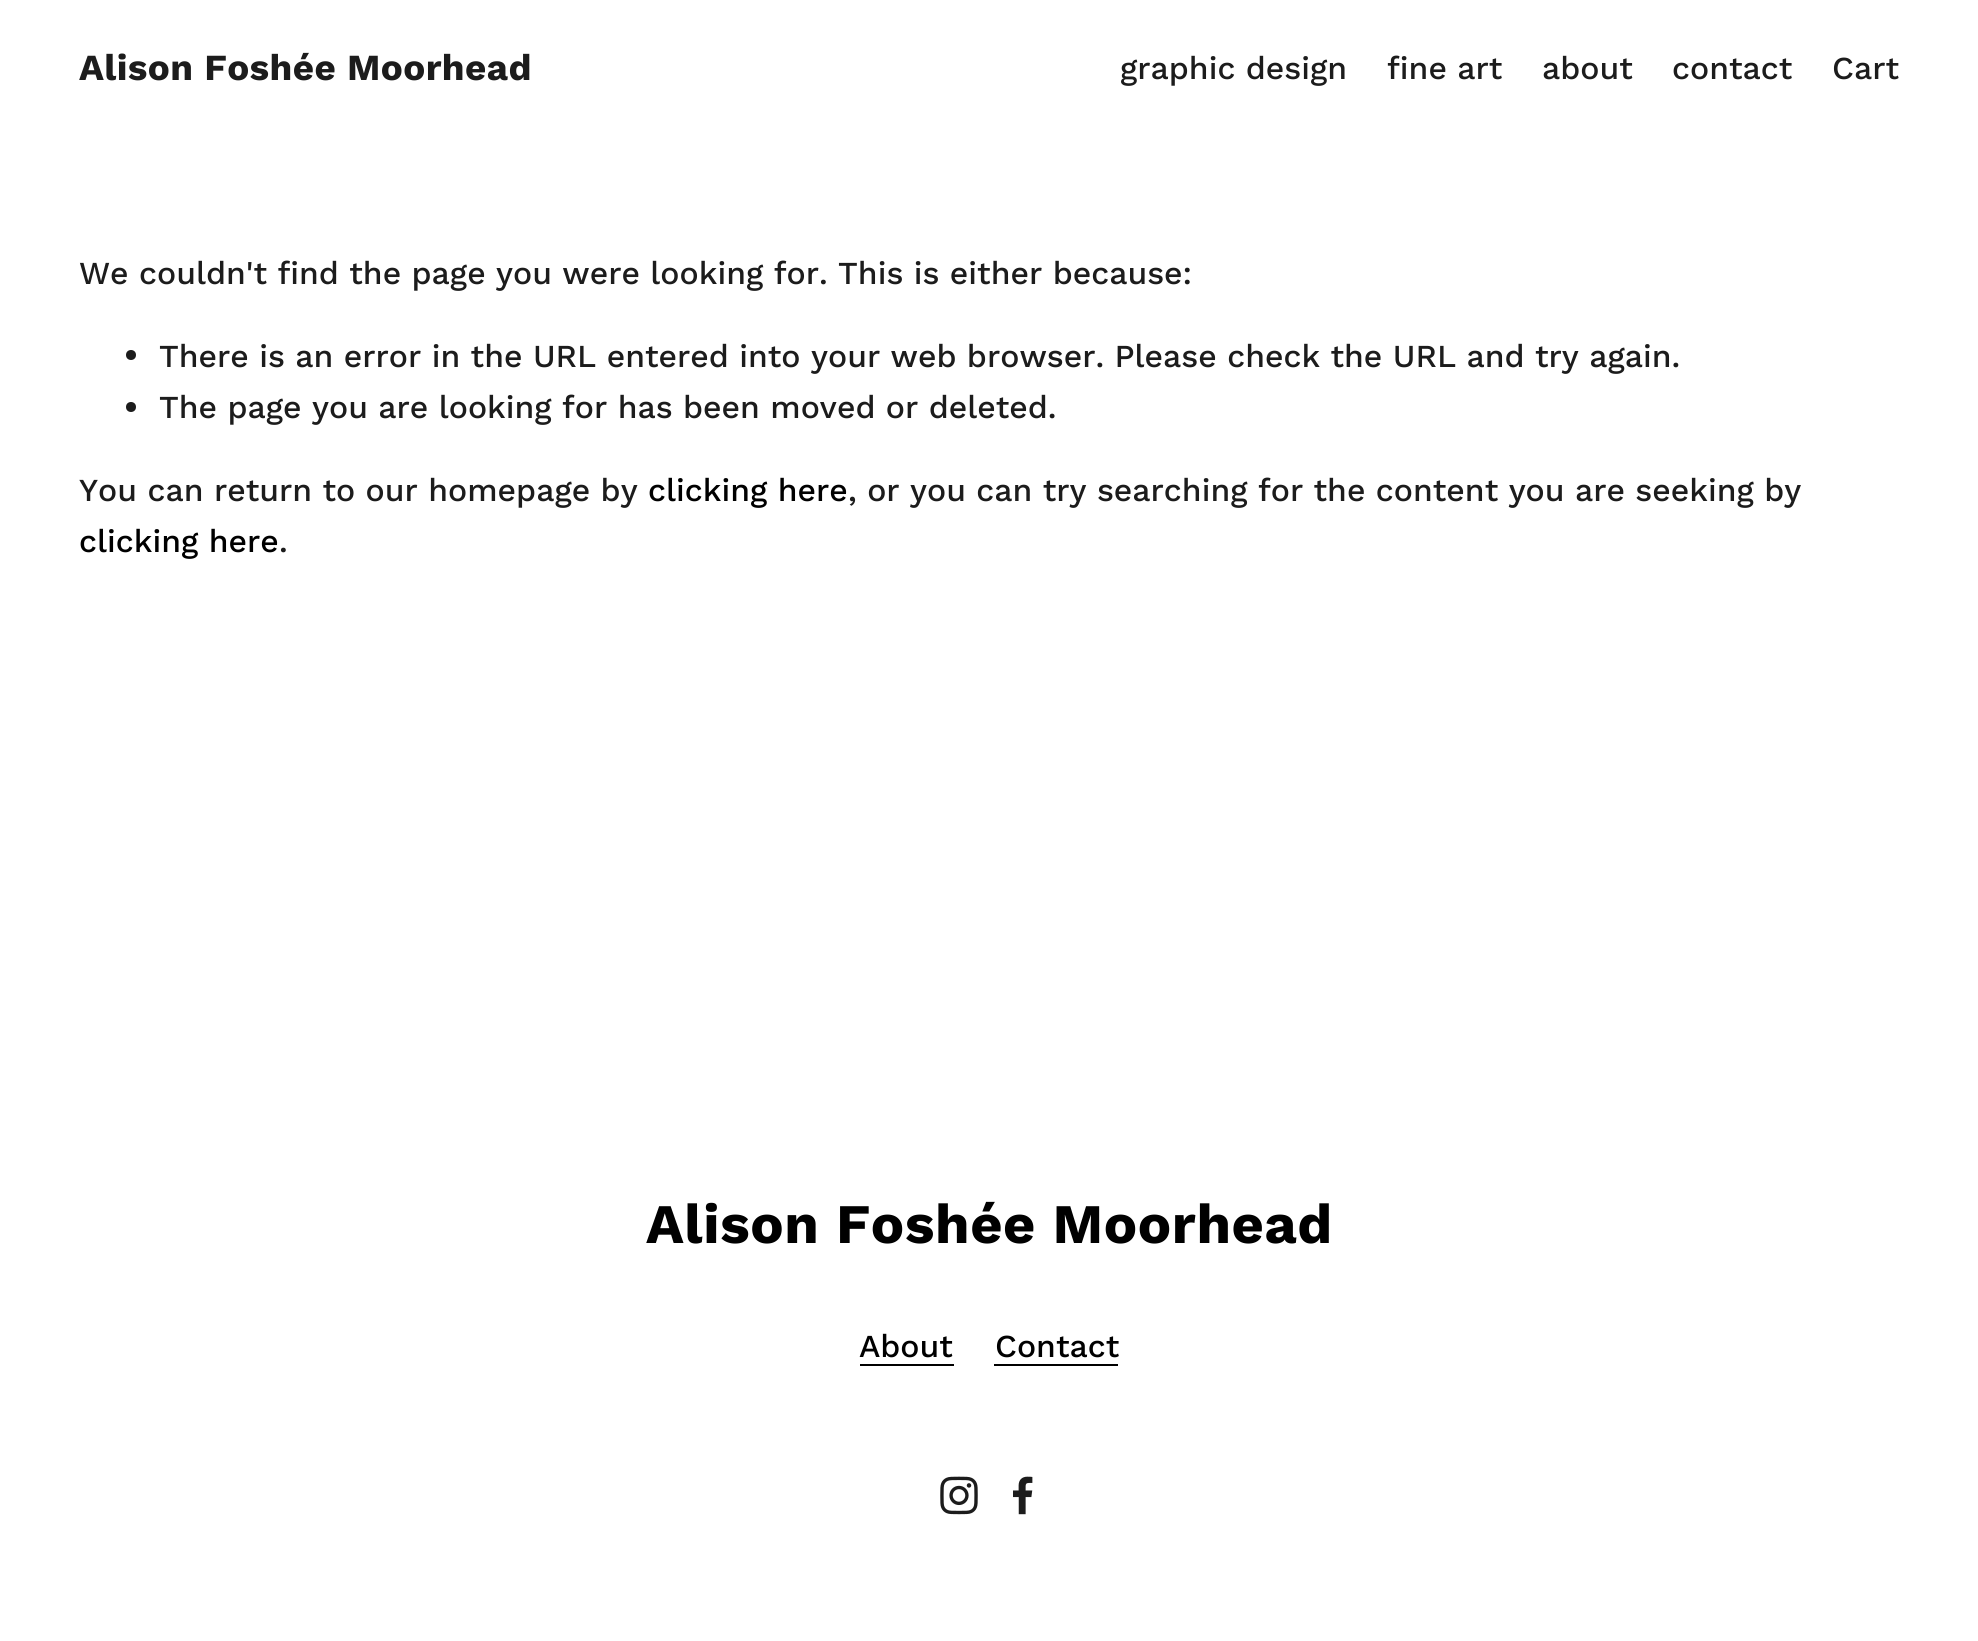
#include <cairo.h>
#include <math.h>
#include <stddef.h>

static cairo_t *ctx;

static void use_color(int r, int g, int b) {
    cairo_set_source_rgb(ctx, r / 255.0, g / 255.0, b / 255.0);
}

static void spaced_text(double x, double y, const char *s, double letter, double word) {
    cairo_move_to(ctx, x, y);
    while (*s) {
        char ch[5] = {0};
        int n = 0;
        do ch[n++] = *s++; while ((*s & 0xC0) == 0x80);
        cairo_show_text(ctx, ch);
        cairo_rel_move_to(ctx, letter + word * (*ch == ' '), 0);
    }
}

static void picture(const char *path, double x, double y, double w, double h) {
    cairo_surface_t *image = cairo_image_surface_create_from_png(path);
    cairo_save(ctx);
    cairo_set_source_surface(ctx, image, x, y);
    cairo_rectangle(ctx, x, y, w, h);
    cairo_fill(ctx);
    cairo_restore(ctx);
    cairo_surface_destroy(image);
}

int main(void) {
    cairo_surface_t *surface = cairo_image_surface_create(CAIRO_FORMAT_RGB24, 1978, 1641);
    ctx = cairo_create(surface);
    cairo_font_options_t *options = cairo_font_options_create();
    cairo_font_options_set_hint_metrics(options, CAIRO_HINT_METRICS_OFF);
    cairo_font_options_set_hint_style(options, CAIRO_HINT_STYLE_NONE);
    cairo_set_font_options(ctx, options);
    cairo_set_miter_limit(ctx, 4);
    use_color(255, 255, 255);
    cairo_paint(ctx);
    cairo_select_font_face(ctx, "Work Sans", CAIRO_FONT_SLANT_NORMAL, CAIRO_FONT_WEIGHT_BOLD);
    cairo_set_font_size(ctx, 36.75);
    use_color(28, 28, 28);
    spaced_text(79, 80, "Alison Foshée Moorhead", 0.4, 0);
    cairo_select_font_face(ctx, "Work Sans Medium", CAIRO_FONT_SLANT_NORMAL, CAIRO_FONT_WEIGHT_NORMAL);
    cairo_set_font_size(ctx, 32);
    cairo_move_to(ctx, 1120, 79);
    cairo_show_text(ctx, "graphic design");
    cairo_move_to(ctx, 1387, 79);
    cairo_show_text(ctx, "fine art");
    cairo_move_to(ctx, 1542, 79);
    cairo_show_text(ctx, "about");
    cairo_move_to(ctx, 1672, 79);
    cairo_show_text(ctx, "contact");
    cairo_move_to(ctx, 1832, 79);
    cairo_show_text(ctx, "Cart");
    cairo_move_to(ctx, 79, 284);
    cairo_show_text(ctx, "We couldn't find the page you were looking for. This is either because:");
    cairo_new_path(ctx);
    cairo_arc(ctx, 131, 355, 5, 0, 2 * M_PI);
    cairo_fill(ctx);
    cairo_move_to(ctx, 159, 367);
    cairo_show_text(ctx, "There is an error in the URL entered into your web browser. Please check the URL and try again.");
    cairo_new_path(ctx);
    cairo_arc(ctx, 131, 407, 5, 0, 2 * M_PI);
    cairo_fill(ctx);
    cairo_move_to(ctx, 159, 418);
    cairo_show_text(ctx, "The page you are looking for has been moved or deleted.");
    cairo_move_to(ctx, 79, 501);
    cairo_show_text(ctx, "You can return to our homepage by");
    use_color(0, 0, 0);
    cairo_move_to(ctx, 648, 501);
    cairo_show_text(ctx, "clicking here");
    use_color(28, 28, 28);
    cairo_move_to(ctx, 848, 501);
    cairo_show_text(ctx, ", or you can try searching for the content you are seeking by");
    use_color(0, 0, 0);
    cairo_move_to(ctx, 79, 552);
    cairo_show_text(ctx, "clicking here");
    use_color(28, 28, 28);
    cairo_move_to(ctx, 279, 552);
    cairo_show_text(ctx, ".");
    cairo_select_font_face(ctx, "Work Sans", CAIRO_FONT_SLANT_NORMAL, CAIRO_FONT_WEIGHT_BOLD);
    cairo_set_font_size(ctx, 55.75);
    use_color(0, 0, 0);
    spaced_text(646, 1243, "Alison Foshée Moorhead", 0.6, 0);
    cairo_select_font_face(ctx, "Work Sans Medium", CAIRO_FONT_SLANT_NORMAL, CAIRO_FONT_WEIGHT_NORMAL);
    cairo_set_font_size(ctx, 32);
    cairo_move_to(ctx, 859, 1357);
    cairo_show_text(ctx, "About");
    cairo_rectangle(ctx, 860, 1364, 94, 2);
    cairo_fill(ctx);
    cairo_move_to(ctx, 995, 1357);
    cairo_show_text(ctx, "Contact");
    cairo_rectangle(ctx, 994, 1364, 124, 2);
    cairo_fill(ctx);
    picture("img1.png", 940, 1476, 38, 39);
    picture("img2.png", 1013, 1476, 20, 39);
    cairo_surface_write_to_png(surface, "result.png");
    cairo_font_options_destroy(options);
    cairo_destroy(ctx);
    cairo_surface_destroy(surface);
    return 0;
}
